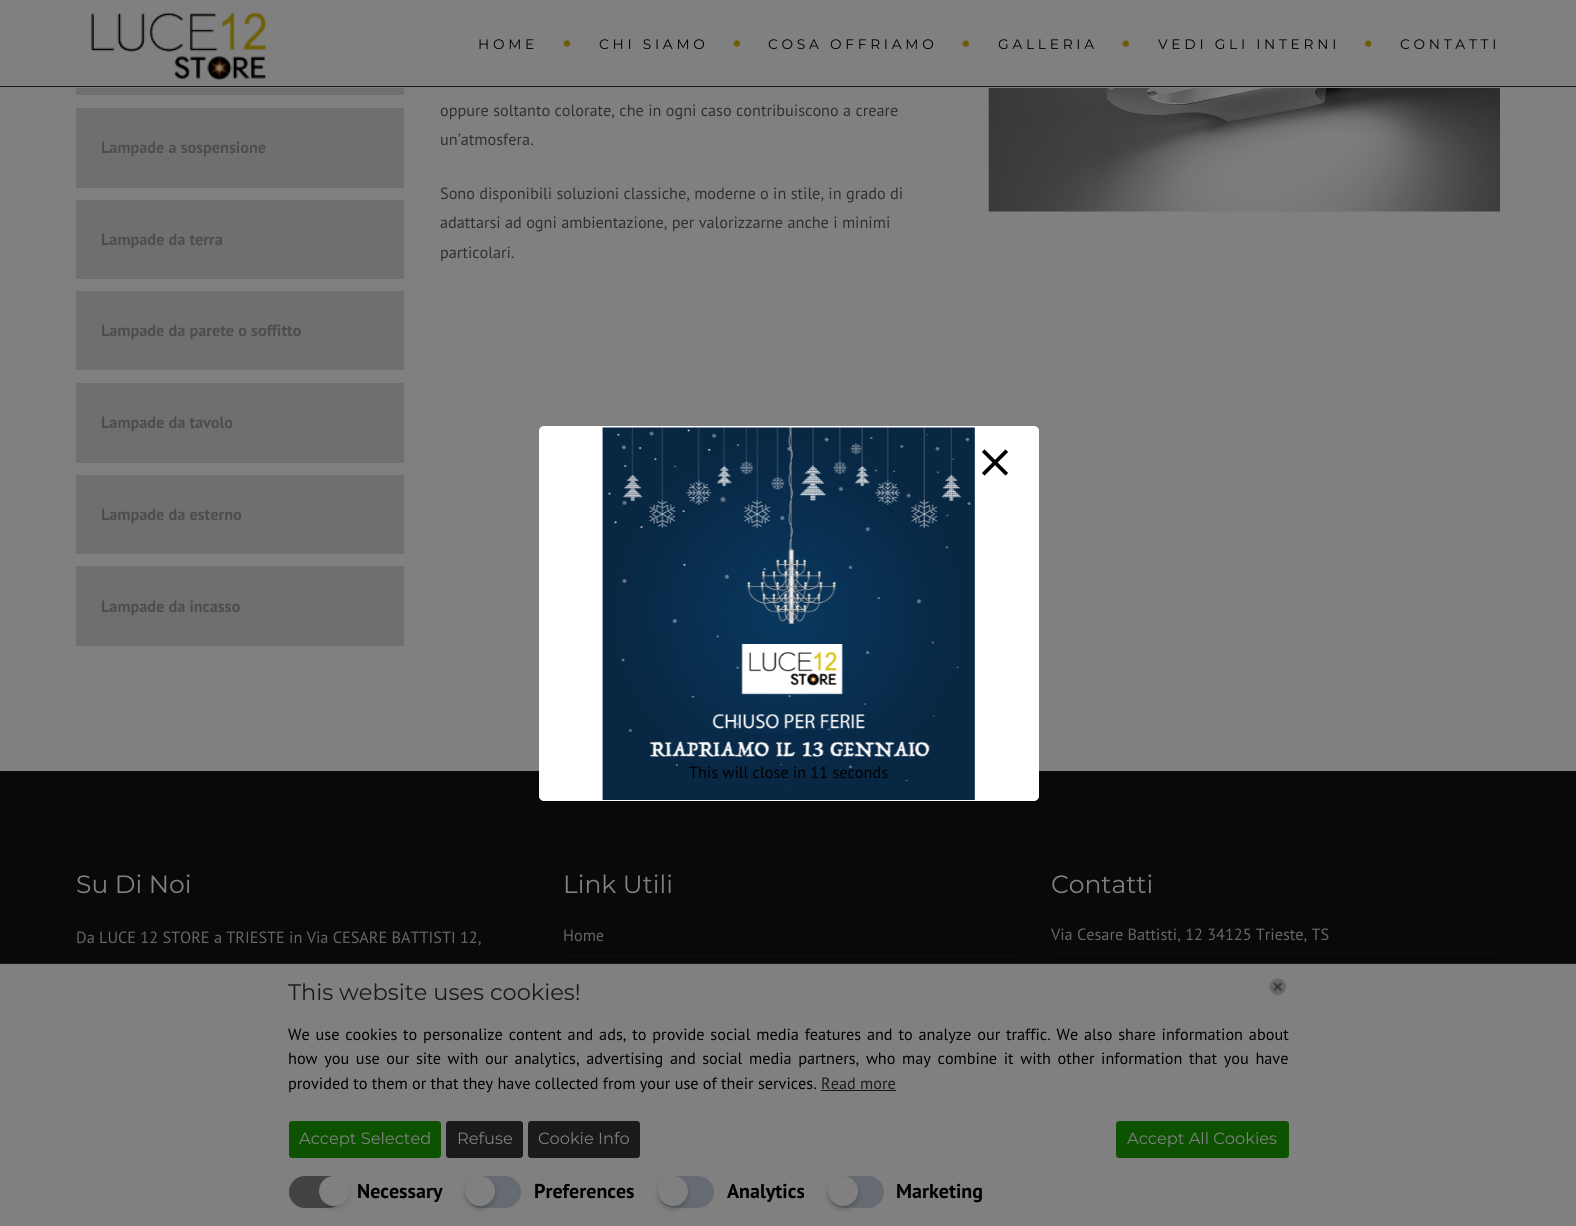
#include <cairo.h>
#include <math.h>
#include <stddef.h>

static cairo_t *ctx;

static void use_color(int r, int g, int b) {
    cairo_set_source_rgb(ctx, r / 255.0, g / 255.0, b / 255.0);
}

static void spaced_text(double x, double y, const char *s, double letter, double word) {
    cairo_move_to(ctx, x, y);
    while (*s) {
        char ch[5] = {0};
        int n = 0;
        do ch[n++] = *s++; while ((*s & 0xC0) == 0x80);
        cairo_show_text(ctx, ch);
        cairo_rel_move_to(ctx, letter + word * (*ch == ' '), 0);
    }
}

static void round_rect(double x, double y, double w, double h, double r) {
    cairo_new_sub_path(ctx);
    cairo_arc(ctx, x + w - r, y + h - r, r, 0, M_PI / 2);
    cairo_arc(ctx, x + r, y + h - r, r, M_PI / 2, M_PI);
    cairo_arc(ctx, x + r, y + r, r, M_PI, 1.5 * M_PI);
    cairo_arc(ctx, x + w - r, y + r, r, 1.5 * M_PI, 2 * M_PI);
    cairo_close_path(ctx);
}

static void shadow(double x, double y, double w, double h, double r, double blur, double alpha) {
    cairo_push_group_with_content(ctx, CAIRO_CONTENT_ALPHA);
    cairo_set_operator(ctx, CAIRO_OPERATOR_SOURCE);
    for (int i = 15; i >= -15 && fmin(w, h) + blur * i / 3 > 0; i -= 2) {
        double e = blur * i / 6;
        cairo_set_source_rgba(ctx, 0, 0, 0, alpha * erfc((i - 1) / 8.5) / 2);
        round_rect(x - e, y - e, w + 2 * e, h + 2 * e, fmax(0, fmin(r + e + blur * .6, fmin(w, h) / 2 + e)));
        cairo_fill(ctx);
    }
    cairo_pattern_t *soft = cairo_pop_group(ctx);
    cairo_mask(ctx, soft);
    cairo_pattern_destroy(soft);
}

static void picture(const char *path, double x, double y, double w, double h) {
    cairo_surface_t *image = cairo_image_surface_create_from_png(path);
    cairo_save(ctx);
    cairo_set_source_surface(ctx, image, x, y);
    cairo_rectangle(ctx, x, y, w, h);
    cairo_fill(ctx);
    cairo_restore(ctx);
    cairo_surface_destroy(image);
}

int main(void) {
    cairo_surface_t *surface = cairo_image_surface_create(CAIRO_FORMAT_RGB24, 1576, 1226);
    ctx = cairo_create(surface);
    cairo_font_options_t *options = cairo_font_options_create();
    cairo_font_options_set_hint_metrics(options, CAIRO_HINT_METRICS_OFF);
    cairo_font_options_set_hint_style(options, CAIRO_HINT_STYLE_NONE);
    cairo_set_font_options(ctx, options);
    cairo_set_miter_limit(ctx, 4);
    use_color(128, 128, 128);
    cairo_paint(ctx);
    use_color(26, 26, 26);
    cairo_rectangle(ctx, 0, 86, 1576, 1);
    cairo_fill(ctx);
    picture("img1.png", 91, 12, 176, 69);
    cairo_select_font_face(ctx, "Montserrat", CAIRO_FONT_SLANT_NORMAL, CAIRO_FONT_WEIGHT_NORMAL);
    cairo_set_font_size(ctx, 13.75);
    use_color(0, 0, 0);
    spaced_text(478, 49, "HOME", 3.75, 0);
    picture("img2.png", 563, 40, 8, 7);
    spaced_text(599, 49, "CHI SIAMO", 3.75, 0);
    picture("img2.png", 733, 40, 8, 7);
    spaced_text(768, 49, "COSA OFFRIAMO", 3.75, 0);
    picture("img3.png", 962, 40, 7, 7);
    spaced_text(998, 49, "GALLERIA", 3.75, 0);
    picture("img3.png", 1122, 40, 7, 7);
    spaced_text(1158, 49, "VEDI GLI INTERNI", 3.75, 0);
    picture("img4.png", 1365, 40, 7, 7);
    spaced_text(1400, 49, "CONTATTI", 3.75, 0);
    use_color(111, 111, 111);
    cairo_rectangle(ctx, 76, 88, 328, 7);
    cairo_fill(ctx);
    cairo_rectangle(ctx, 76, 108, 328, 80);
    cairo_fill(ctx);
    cairo_select_font_face(ctx, "PT Sans", CAIRO_FONT_SLANT_NORMAL, CAIRO_FONT_WEIGHT_BOLD);
    cairo_set_font_size(ctx, 16.25);
    use_color(77, 77, 77);
    cairo_move_to(ctx, 101, 153);
    cairo_show_text(ctx, "Lampade a sospensione");
    use_color(111, 111, 111);
    cairo_rectangle(ctx, 76, 200, 328, 79);
    cairo_fill(ctx);
    use_color(77, 77, 77);
    cairo_move_to(ctx, 101, 245);
    cairo_show_text(ctx, "Lampade da terra");
    use_color(111, 111, 111);
    cairo_rectangle(ctx, 76, 291, 328, 79);
    cairo_fill(ctx);
    use_color(77, 77, 77);
    cairo_move_to(ctx, 101, 336);
    cairo_show_text(ctx, "Lampade da parete o soffitto");
    use_color(111, 111, 111);
    cairo_rectangle(ctx, 76, 383, 328, 80);
    cairo_fill(ctx);
    use_color(77, 77, 77);
    cairo_move_to(ctx, 101, 428);
    cairo_show_text(ctx, "Lampade da tavolo");
    use_color(111, 111, 111);
    cairo_rectangle(ctx, 76, 475, 328, 79);
    cairo_fill(ctx);
    use_color(77, 77, 77);
    cairo_move_to(ctx, 101, 520);
    cairo_show_text(ctx, "Lampade da esterno");
    use_color(111, 111, 111);
    cairo_rectangle(ctx, 76, 566, 328, 80);
    cairo_fill(ctx);
    use_color(77, 77, 77);
    cairo_move_to(ctx, 101, 612);
    cairo_show_text(ctx, "Lampade da incasso");
    cairo_select_font_face(ctx, "PT Sans", CAIRO_FONT_SLANT_NORMAL, CAIRO_FONT_WEIGHT_NORMAL);
    use_color(48, 48, 48);
    cairo_move_to(ctx, 440, 116);
    cairo_show_text(ctx, "oppure soltanto colorate, che in ogni caso contribuiscono a creare");
    cairo_move_to(ctx, 440, 145);
    cairo_show_text(ctx, "un’atmosfera.");
    cairo_move_to(ctx, 440, 199);
    cairo_show_text(ctx, "Sono disponibili soluzioni classiche, moderne o in stile, in grado di");
    cairo_move_to(ctx, 440, 228);
    cairo_show_text(ctx, "adattarsi ad ogni ambientazione, per valorizzarne anche i minimi");
    cairo_move_to(ctx, 440, 258);
    cairo_show_text(ctx, "particolari.");
    picture("img5.png", 988, 88, 512, 124);
    use_color(9, 9, 9);
    cairo_rectangle(ctx, 0, 771, 1576, 192);
    cairo_fill(ctx);
    cairo_select_font_face(ctx, "Montserrat", CAIRO_FONT_SLANT_NORMAL, CAIRO_FONT_WEIGHT_NORMAL);
    cairo_set_font_size(ctx, 25);
    use_color(128, 128, 128);
    cairo_move_to(ctx, 76, 893);
    cairo_show_text(ctx, "Su Di Noi");
    cairo_select_font_face(ctx, "PT Sans", CAIRO_FONT_SLANT_NORMAL, CAIRO_FONT_WEIGHT_NORMAL);
    cairo_set_font_size(ctx, 16.25);
    use_color(102, 102, 102);
    cairo_move_to(ctx, 76, 943);
    cairo_show_text(ctx, "Da LUCE 12 STORE a TRIESTE in Via CESARE BATTISTI 12,");
    cairo_select_font_face(ctx, "Montserrat", CAIRO_FONT_SLANT_NORMAL, CAIRO_FONT_WEIGHT_NORMAL);
    cairo_set_font_size(ctx, 25);
    use_color(128, 128, 128);
    cairo_move_to(ctx, 563, 893);
    cairo_show_text(ctx, "Link Utili");
    use_color(17, 17, 17);
    cairo_rectangle(ctx, 564, 955, 450, 1);
    cairo_fill(ctx);
    cairo_select_font_face(ctx, "PT Sans", CAIRO_FONT_SLANT_NORMAL, CAIRO_FONT_WEIGHT_NORMAL);
    cairo_set_font_size(ctx, 16.25);
    use_color(102, 102, 102);
    cairo_move_to(ctx, 563, 941);
    cairo_show_text(ctx, "Home");
    cairo_select_font_face(ctx, "Montserrat", CAIRO_FONT_SLANT_NORMAL, CAIRO_FONT_WEIGHT_NORMAL);
    cairo_set_font_size(ctx, 25);
    use_color(128, 128, 128);
    cairo_move_to(ctx, 1051, 893);
    cairo_show_text(ctx, "Contatti");
    use_color(17, 17, 17);
    cairo_rectangle(ctx, 1051, 953, 450, 1);
    cairo_fill(ctx);
    cairo_select_font_face(ctx, "PT Sans", CAIRO_FONT_SLANT_NORMAL, CAIRO_FONT_WEIGHT_NORMAL);
    cairo_set_font_size(ctx, 16.25);
    use_color(102, 102, 102);
    cairo_move_to(ctx, 1051, 940);
    cairo_show_text(ctx, "Via Cesare Battisti, 12 34125 Trieste, TS");
    use_color(255, 255, 255);
    round_rect(539.5, 426.5, 499, 374, 4.5);
    cairo_fill_preserve(ctx);
    cairo_set_line_width(ctx, 1);
    cairo_stroke(ctx);
    picture("img6.png", 602, 427, 373, 373);
    picture("img7.png", 982, 449, 26, 27);
    use_color(0, 0, 0);
    cairo_move_to(ctx, 689, 778);
    cairo_show_text(ctx, "This will close in 11 seconds");
    use_color(26, 26, 26);
    cairo_rectangle(ctx, 0, 963, 1576, 1);
    cairo_fill(ctx);
    cairo_select_font_face(ctx, "Montserrat", CAIRO_FONT_SLANT_NORMAL, CAIRO_FONT_WEIGHT_NORMAL);
    cairo_set_font_size(ctx, 22.5);
    cairo_move_to(ctx, 288, 1000);
    cairo_show_text(ctx, "This website uses cookies!");
    picture("img8.png", 1267, 978, 22, 18);
    cairo_select_font_face(ctx, "PT Sans", CAIRO_FONT_SLANT_NORMAL, CAIRO_FONT_WEIGHT_NORMAL);
    cairo_set_font_size(ctx, 16.25);
    use_color(0, 0, 0);
    spaced_text(288, 1040, "We use cookies to personalize content and ads, to provide social media features and to analyze our traffic. We also share information about", 0, 1.5);
    spaced_text(288, 1064, "how you use our site with our analytics, advertising and social media partners, who may combine it with other information that you have", 0, 2.3);
    cairo_move_to(ctx, 288, 1089);
    cairo_show_text(ctx, "provided to them or that they have collected from your use of their services.");
    use_color(26, 26, 26);
    cairo_move_to(ctx, 821, 1089);
    cairo_show_text(ctx, "Read more");
    cairo_rectangle(ctx, 821, 1090, 75, 1);
    cairo_fill(ctx);
    use_color(12, 82, 0);
    round_rect(289, 1121, 152, 37, 3);
    cairo_fill(ctx);
    cairo_select_font_face(ctx, "Montserrat", CAIRO_FONT_SLANT_NORMAL, CAIRO_FONT_WEIGHT_NORMAL);
    use_color(128, 128, 128);
    cairo_move_to(ctx, 299, 1144);
    cairo_show_text(ctx, "Accept Selected");
    use_color(26, 26, 26);
    round_rect(446, 1121, 77, 37, 3);
    cairo_fill(ctx);
    use_color(128, 128, 128);
    cairo_move_to(ctx, 457, 1144);
    cairo_show_text(ctx, "Refuse");
    use_color(26, 26, 26);
    round_rect(528, 1121, 112, 37, 3);
    cairo_fill(ctx);
    use_color(128, 128, 128);
    cairo_move_to(ctx, 538, 1144);
    cairo_show_text(ctx, "Cookie Info");
    use_color(12, 82, 0);
    round_rect(1116, 1121, 173, 37, 3);
    cairo_fill(ctx);
    use_color(128, 128, 128);
    cairo_move_to(ctx, 1127, 1144);
    cairo_show_text(ctx, "Accept All Cookies");
    use_color(67, 67, 67);
    round_rect(289, 1176, 56, 32, 16);
    cairo_fill(ctx);
    use_color(51, 51, 51);
    shadow(319, 1179, 30, 30, 15, 2.5, 0.2);
    use_color(128, 128, 128);
    cairo_arc(ctx, 334, 1191, 15, 0, 2 * M_PI);
    cairo_fill(ctx);
    cairo_select_font_face(ctx, "PT Sans", CAIRO_FONT_SLANT_NORMAL, CAIRO_FONT_WEIGHT_BOLD);
    cairo_set_font_size(ctx, 20);
    use_color(0, 0, 0);
    cairo_move_to(ctx, 357, 1198);
    cairo_show_text(ctx, "Necessary");
    use_color(102, 107, 113);
    round_rect(465, 1176, 56, 32, 16);
    cairo_fill(ctx);
    use_color(0, 0, 0);
    shadow(465, 1179, 30, 30, 15, 2.5, 0.2);
    use_color(128, 128, 128);
    cairo_arc(ctx, 480, 1191, 15, 0, 2 * M_PI);
    cairo_fill(ctx);
    use_color(0, 0, 0);
    cairo_move_to(ctx, 534, 1198);
    cairo_show_text(ctx, "Preferences");
    use_color(102, 107, 113);
    round_rect(658, 1176, 56, 32, 16);
    cairo_fill(ctx);
    use_color(0, 0, 0);
    shadow(658, 1179, 30, 30, 15, 2.5, 0.2);
    use_color(128, 128, 128);
    cairo_arc(ctx, 673, 1191, 15, 0, 2 * M_PI);
    cairo_fill(ctx);
    use_color(0, 0, 0);
    cairo_move_to(ctx, 727, 1198);
    cairo_show_text(ctx, "Analytics");
    use_color(102, 107, 113);
    round_rect(828, 1176, 56, 32, 16);
    cairo_fill(ctx);
    use_color(0, 0, 0);
    shadow(828, 1179, 30, 30, 15, 2.5, 0.2);
    use_color(128, 128, 128);
    cairo_arc(ctx, 843, 1191, 15, 0, 2 * M_PI);
    cairo_fill(ctx);
    use_color(0, 0, 0);
    cairo_move_to(ctx, 896, 1198);
    cairo_show_text(ctx, "Marketing");
    cairo_surface_write_to_png(surface, "result.png");
    cairo_font_options_destroy(options);
    cairo_destroy(ctx);
    cairo_surface_destroy(surface);
    return 0;
}
